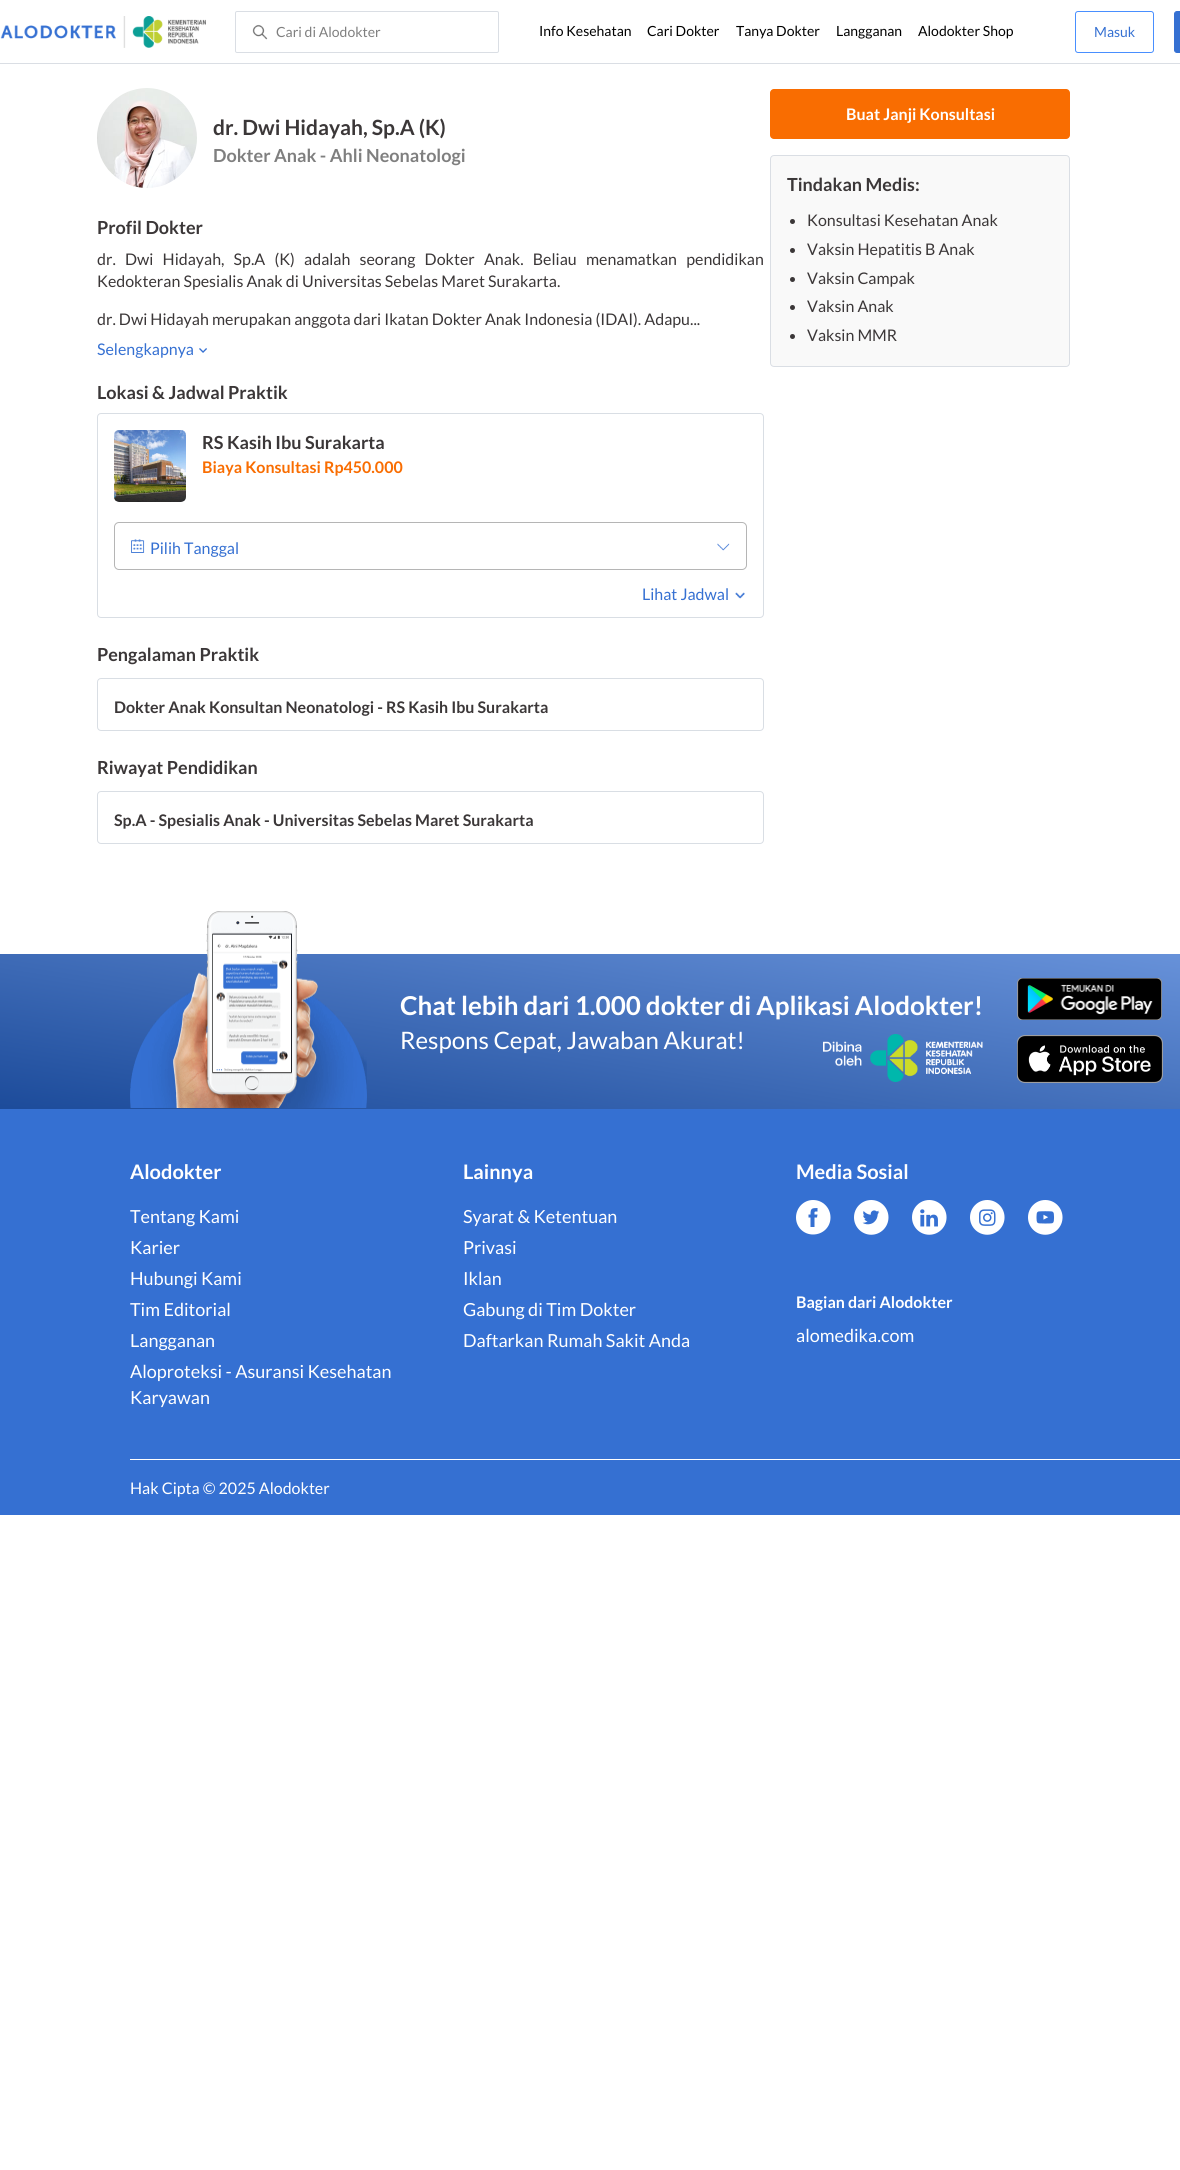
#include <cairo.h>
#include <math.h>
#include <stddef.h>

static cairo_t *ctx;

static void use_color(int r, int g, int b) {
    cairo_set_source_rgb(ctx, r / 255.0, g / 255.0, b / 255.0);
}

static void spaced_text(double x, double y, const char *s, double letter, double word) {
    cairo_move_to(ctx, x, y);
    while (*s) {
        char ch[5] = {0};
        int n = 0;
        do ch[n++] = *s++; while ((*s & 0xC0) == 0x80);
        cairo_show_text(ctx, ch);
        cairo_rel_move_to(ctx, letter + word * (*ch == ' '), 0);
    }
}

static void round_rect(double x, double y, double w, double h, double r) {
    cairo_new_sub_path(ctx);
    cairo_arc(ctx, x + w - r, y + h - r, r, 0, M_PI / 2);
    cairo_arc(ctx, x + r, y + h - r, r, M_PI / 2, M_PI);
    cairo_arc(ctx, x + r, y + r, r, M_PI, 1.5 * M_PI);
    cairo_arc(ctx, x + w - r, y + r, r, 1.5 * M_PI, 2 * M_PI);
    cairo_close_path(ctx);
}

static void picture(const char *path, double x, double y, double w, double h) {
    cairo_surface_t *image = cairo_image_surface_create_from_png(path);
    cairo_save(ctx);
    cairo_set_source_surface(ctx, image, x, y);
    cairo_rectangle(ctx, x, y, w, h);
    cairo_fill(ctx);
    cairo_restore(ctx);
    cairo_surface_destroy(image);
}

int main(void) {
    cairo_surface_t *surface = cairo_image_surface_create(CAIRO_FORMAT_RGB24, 1180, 2170);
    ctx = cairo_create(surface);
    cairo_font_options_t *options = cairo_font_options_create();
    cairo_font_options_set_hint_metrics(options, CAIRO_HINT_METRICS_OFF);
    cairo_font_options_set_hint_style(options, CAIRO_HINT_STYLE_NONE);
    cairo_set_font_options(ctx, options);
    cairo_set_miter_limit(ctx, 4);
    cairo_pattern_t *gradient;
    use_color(255, 255, 255);
    cairo_paint(ctx);
    use_color(218, 222, 228);
    cairo_rectangle(ctx, 0, 63, 1180, 1);
    cairo_fill(ctx);
    picture("img1.png", 0, 16, 206, 32);
    picture("img2.png", 252, 24, 16, 16);
    round_rect(235.5, 11.5, 263, 41, 1.5);
    cairo_set_line_width(ctx, 1);
    cairo_stroke(ctx);
    cairo_select_font_face(ctx, "Lato", CAIRO_FONT_SLANT_NORMAL, CAIRO_FONT_WEIGHT_NORMAL);
    cairo_set_font_size(ctx, 14);
    use_color(127, 127, 127);
    cairo_move_to(ctx, 276, 37);
    cairo_show_text(ctx, "Cari di Alodokter");
    use_color(0, 0, 0);
    cairo_move_to(ctx, 539, 36);
    cairo_show_text(ctx, "Info Kesehatan");
    cairo_move_to(ctx, 647, 36);
    cairo_show_text(ctx, "Cari Dokter");
    cairo_move_to(ctx, 736, 36);
    cairo_show_text(ctx, "Tanya Dokter");
    cairo_move_to(ctx, 836, 36);
    cairo_show_text(ctx, "Langganan");
    cairo_move_to(ctx, 918, 36);
    cairo_show_text(ctx, "Alodokter Shop");
    round_rect(1075.5, 11.5, 78, 41, 2.5);
    use_color(73, 143, 255);
    cairo_stroke(ctx);
    use_color(53, 112, 210);
    cairo_move_to(ctx, 1094, 37);
    cairo_show_text(ctx, "Masuk");
    round_rect(1174.5, 11.5, 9, 41, 2.5);
    cairo_fill_preserve(ctx);
    cairo_stroke(ctx);
    picture("img3.png", 97, 88, 100, 100);
    cairo_select_font_face(ctx, "Lato", CAIRO_FONT_SLANT_NORMAL, CAIRO_FONT_WEIGHT_BOLD);
    cairo_set_font_size(ctx, 21);
    use_color(59, 55, 56);
    cairo_move_to(ctx, 213, 135);
    cairo_show_text(ctx, "dr. Dwi Hidayah, Sp.A (K)");
    cairo_set_font_size(ctx, 18);
    use_color(127, 127, 127);
    cairo_move_to(ctx, 213, 162);
    cairo_show_text(ctx, "Dokter Anak - Ahli Neonatologi");
    use_color(59, 55, 56);
    cairo_move_to(ctx, 97, 234);
    cairo_show_text(ctx, "Profil Dokter");
    cairo_select_font_face(ctx, "Lato", CAIRO_FONT_SLANT_NORMAL, CAIRO_FONT_WEIGHT_NORMAL);
    cairo_set_font_size(ctx, 16);
    spaced_text(97, 265, "dr. Dwi Hidayah, Sp.A (K) adalah seorang Dokter Anak. Beliau menamatkan pendidikan", 0, 6.1);
    cairo_move_to(ctx, 97, 287);
    cairo_show_text(ctx, "Kedokteran Spesialis Anak di Universitas Sebelas Maret Surakarta.");
    cairo_move_to(ctx, 97, 325);
    cairo_show_text(ctx, "dr. Dwi Hidayah merupakan anggota dari Ikatan Dokter Anak Indonesia (IDAI). Adapu...");
    picture("img4.png", 199, 348, 8, 5);
    use_color(53, 112, 210);
    cairo_move_to(ctx, 97, 355);
    cairo_show_text(ctx, "Selengkapnya");
    cairo_select_font_face(ctx, "Lato", CAIRO_FONT_SLANT_NORMAL, CAIRO_FONT_WEIGHT_BOLD);
    cairo_set_font_size(ctx, 18);
    use_color(59, 55, 56);
    cairo_move_to(ctx, 97, 399);
    cairo_show_text(ctx, "Lokasi & Jadwal Praktik");
    round_rect(97.5, 413.5, 666, 204, 3.5);
    use_color(217, 222, 228);
    cairo_stroke(ctx);
    picture("img5.png", 114, 430, 72, 72);
    use_color(59, 55, 56);
    cairo_move_to(ctx, 202, 449);
    cairo_show_text(ctx, "RS Kasih Ibu Surakarta");
    cairo_set_font_size(ctx, 16);
    use_color(249, 109, 1);
    cairo_move_to(ctx, 202, 473);
    cairo_show_text(ctx, "Biaya Konsultasi Rp450.000");
    round_rect(114.5, 522.5, 632, 47, 4.5);
    use_color(181, 181, 181);
    cairo_stroke(ctx);
    picture("img6.png", 131, 539, 14, 14);
    cairo_select_font_face(ctx, "Lato", CAIRO_FONT_SLANT_NORMAL, CAIRO_FONT_WEIGHT_NORMAL);
    use_color(53, 112, 210);
    cairo_move_to(ctx, 150, 554);
    cairo_show_text(ctx, "Pilih Tanggal");
    picture("img7.png", 717, 543, 13, 8);
    cairo_move_to(ctx, 642, 600);
    cairo_show_text(ctx, "Lihat Jadwal");
    picture("img8.png", 735, 592, 10, 7);
    cairo_select_font_face(ctx, "Lato", CAIRO_FONT_SLANT_NORMAL, CAIRO_FONT_WEIGHT_BOLD);
    cairo_set_font_size(ctx, 18);
    use_color(59, 55, 56);
    cairo_move_to(ctx, 97, 661);
    cairo_show_text(ctx, "Pengalaman Praktik");
    round_rect(97.5, 678.5, 666, 52, 3.5);
    use_color(217, 222, 228);
    cairo_stroke(ctx);
    cairo_set_font_size(ctx, 16);
    use_color(59, 55, 56);
    cairo_move_to(ctx, 114, 713);
    cairo_show_text(ctx, "Dokter Anak Konsultan Neonatologi - RS Kasih Ibu Surakarta");
    cairo_set_font_size(ctx, 18);
    cairo_move_to(ctx, 97, 774);
    cairo_show_text(ctx, "Riwayat Pendidikan");
    round_rect(97.5, 791.5, 666, 52, 3.5);
    use_color(217, 222, 228);
    cairo_stroke(ctx);
    cairo_set_font_size(ctx, 16);
    use_color(59, 55, 56);
    cairo_move_to(ctx, 114, 826);
    cairo_show_text(ctx, "Sp.A - Spesialis Anak - Universitas Sebelas Maret Surakarta");
    use_color(249, 109, 1);
    round_rect(770, 89, 300, 50, 4);
    cairo_fill(ctx);
    use_color(255, 255, 255);
    cairo_move_to(ctx, 846, 120);
    cairo_show_text(ctx, "Buat Janji Konsultasi");
    use_color(249, 249, 249);
    round_rect(770.5, 155.5, 299, 211, 3.5);
    cairo_fill_preserve(ctx);
    use_color(218, 222, 228);
    cairo_stroke(ctx);
    cairo_set_font_size(ctx, 18);
    use_color(59, 55, 56);
    cairo_move_to(ctx, 787, 191);
    cairo_show_text(ctx, "Tindakan Medis:");
    cairo_new_path(ctx);
    cairo_arc(ctx, 792.5, 221.5, 2.5, 0, 2 * M_PI);
    cairo_fill(ctx);
    cairo_select_font_face(ctx, "Lato", CAIRO_FONT_SLANT_NORMAL, CAIRO_FONT_WEIGHT_NORMAL);
    cairo_set_font_size(ctx, 16);
    cairo_move_to(ctx, 807, 226);
    cairo_show_text(ctx, "Konsultasi Kesehatan Anak");
    cairo_new_path(ctx);
    cairo_arc(ctx, 792.5, 250.5, 2.5, 0, 2 * M_PI);
    cairo_fill(ctx);
    cairo_move_to(ctx, 807, 255);
    cairo_show_text(ctx, "Vaksin Hepatitis B Anak");
    cairo_new_path(ctx);
    cairo_arc(ctx, 792.5, 279.5, 2.5, 0, 2 * M_PI);
    cairo_fill(ctx);
    cairo_move_to(ctx, 807, 284);
    cairo_show_text(ctx, "Vaksin Campak");
    cairo_new_path(ctx);
    cairo_arc(ctx, 792.5, 307.5, 2.5, 0, 2 * M_PI);
    cairo_fill(ctx);
    cairo_move_to(ctx, 807, 312);
    cairo_show_text(ctx, "Vaksin Anak");
    cairo_new_path(ctx);
    cairo_arc(ctx, 792.5, 336.5, 2.5, 0, 2 * M_PI);
    cairo_fill(ctx);
    cairo_move_to(ctx, 807, 341);
    cairo_show_text(ctx, "Vaksin MMR");
    use_color(53, 112, 210);
    cairo_rectangle(ctx, 0, 1109, 1180, 406);
    cairo_fill(ctx);
    gradient = cairo_pattern_create_linear(698, 852, 642, 1211);
    cairo_pattern_add_color_stop_rgba(gradient, 0, 0.427, 0.592, 0.871, 1);
    cairo_pattern_add_color_stop_rgba(gradient, 1, 0.11, 0.294, 0.604, 1);
    cairo_set_source(ctx, gradient);
    cairo_pattern_destroy(gradient);
    cairo_rectangle(ctx, 0, 954, 1180, 155);
    cairo_fill(ctx);
    picture("img9.png", 130, 911, 237, 197);
    cairo_select_font_face(ctx, "Lato", CAIRO_FONT_SLANT_NORMAL, CAIRO_FONT_WEIGHT_BOLD);
    cairo_set_font_size(ctx, 26);
    use_color(255, 255, 255);
    cairo_move_to(ctx, 400, 1015);
    cairo_show_text(ctx, "Chat lebih dari 1.000 dokter di Aplikasi Alodokter!");
    cairo_select_font_face(ctx, "Lato", CAIRO_FONT_SLANT_NORMAL, CAIRO_FONT_WEIGHT_NORMAL);
    cairo_set_font_size(ctx, 24);
    cairo_move_to(ctx, 400, 1049);
    cairo_show_text(ctx, "Respons Cepat, Jawaban Akurat!");
    picture("img10.png", 823, 1034, 160, 48);
    picture("img11.png", 1017, 978, 145, 42);
    picture("img12.png", 1017, 1035, 146, 48);
    cairo_select_font_face(ctx, "Lato", CAIRO_FONT_SLANT_NORMAL, CAIRO_FONT_WEIGHT_BOLD);
    cairo_set_font_size(ctx, 20);
    cairo_move_to(ctx, 130, 1179);
    cairo_show_text(ctx, "Alodokter");
    cairo_select_font_face(ctx, "Lato", CAIRO_FONT_SLANT_NORMAL, CAIRO_FONT_WEIGHT_NORMAL);
    cairo_set_font_size(ctx, 18);
    cairo_move_to(ctx, 130, 1223);
    cairo_show_text(ctx, "Tentang Kami");
    cairo_move_to(ctx, 130, 1254);
    cairo_show_text(ctx, "Karier");
    cairo_move_to(ctx, 130, 1285);
    cairo_show_text(ctx, "Hubungi Kami");
    cairo_move_to(ctx, 130, 1316);
    cairo_show_text(ctx, "Tim Editorial");
    cairo_move_to(ctx, 130, 1347);
    cairo_show_text(ctx, "Langganan");
    cairo_move_to(ctx, 130, 1378);
    cairo_show_text(ctx, "Aloproteksi - Asuransi Kesehatan");
    cairo_move_to(ctx, 130, 1404);
    cairo_show_text(ctx, "Karyawan");
    cairo_select_font_face(ctx, "Lato", CAIRO_FONT_SLANT_NORMAL, CAIRO_FONT_WEIGHT_BOLD);
    cairo_set_font_size(ctx, 20);
    cairo_move_to(ctx, 463, 1179);
    cairo_show_text(ctx, "Lainnya");
    cairo_select_font_face(ctx, "Lato", CAIRO_FONT_SLANT_NORMAL, CAIRO_FONT_WEIGHT_NORMAL);
    cairo_set_font_size(ctx, 18);
    cairo_move_to(ctx, 463, 1223);
    cairo_show_text(ctx, "Syarat & Ketentuan");
    cairo_move_to(ctx, 463, 1254);
    cairo_show_text(ctx, "Privasi");
    cairo_move_to(ctx, 463, 1285);
    cairo_show_text(ctx, "Iklan");
    cairo_move_to(ctx, 463, 1316);
    cairo_show_text(ctx, "Gabung di Tim Dokter");
    cairo_move_to(ctx, 463, 1347);
    cairo_show_text(ctx, "Daftarkan Rumah Sakit Anda");
    cairo_select_font_face(ctx, "Lato", CAIRO_FONT_SLANT_NORMAL, CAIRO_FONT_WEIGHT_BOLD);
    cairo_set_font_size(ctx, 20);
    cairo_move_to(ctx, 796, 1179);
    cairo_show_text(ctx, "Media Sosial");
    cairo_set_fill_rule(ctx, CAIRO_FILL_RULE_EVEN_ODD);
    cairo_new_path(ctx);
    cairo_move_to(ctx, 796, 1217.5);
    cairo_curve_to(ctx, 796, 1208, 803.5, 1200, 813, 1200);
    cairo_curve_to(ctx, 823, 1200, 830.5, 1208, 830.5, 1217.5);
    cairo_curve_to(ctx, 830.5, 1227, 823, 1234.5, 813, 1234.5);
    cairo_curve_to(ctx, 803.5, 1234.5, 796, 1227, 796, 1217.5);
    cairo_close_path(ctx);
    cairo_fill(ctx);
    use_color(53, 112, 210);
    cairo_new_path(ctx);
    cairo_move_to(ctx, 814.5, 1227);
    cairo_line_to(ctx, 814.5, 1217.5);
    cairo_line_to(ctx, 817, 1217.5);
    cairo_line_to(ctx, 817.5, 1214.5);
    cairo_line_to(ctx, 814.5, 1214.5);
    cairo_curve_to(ctx, 814.5, 1211.5, 814, 1211.5, 817.5, 1211.5);
    cairo_line_to(ctx, 817.5, 1208);
    cairo_curve_to(ctx, 811.5, 1208, 810.5, 1208.5, 810.5, 1214.5);
    cairo_line_to(ctx, 808.5, 1214.5);
    cairo_line_to(ctx, 808.5, 1217.5);
    cairo_line_to(ctx, 810.5, 1217.5);
    cairo_line_to(ctx, 810.5, 1227);
    cairo_close_path(ctx);
    cairo_fill(ctx);
    picture("img13.png", 854, 1200, 35, 35);
    picture("img14.png", 912, 1200, 35, 35);
    picture("img15.png", 970, 1200, 35, 35);
    picture("img16.png", 1028, 1200, 35, 35);
    cairo_set_font_size(ctx, 16);
    use_color(255, 255, 255);
    cairo_move_to(ctx, 796, 1308);
    cairo_show_text(ctx, "Bagian dari Alodokter");
    cairo_select_font_face(ctx, "Lato", CAIRO_FONT_SLANT_NORMAL, CAIRO_FONT_WEIGHT_NORMAL);
    cairo_set_font_size(ctx, 18);
    cairo_move_to(ctx, 796, 1342);
    cairo_show_text(ctx, "alomedika.com");
    cairo_rectangle(ctx, 130, 1459, 1050, 1);
    cairo_fill(ctx);
    cairo_set_font_size(ctx, 16);
    cairo_move_to(ctx, 130, 1494);
    cairo_show_text(ctx, "Hak Cipta © 2025 Alodokter");
    cairo_surface_write_to_png(surface, "result.png");
    cairo_font_options_destroy(options);
    cairo_destroy(ctx);
    cairo_surface_destroy(surface);
    return 0;
}
